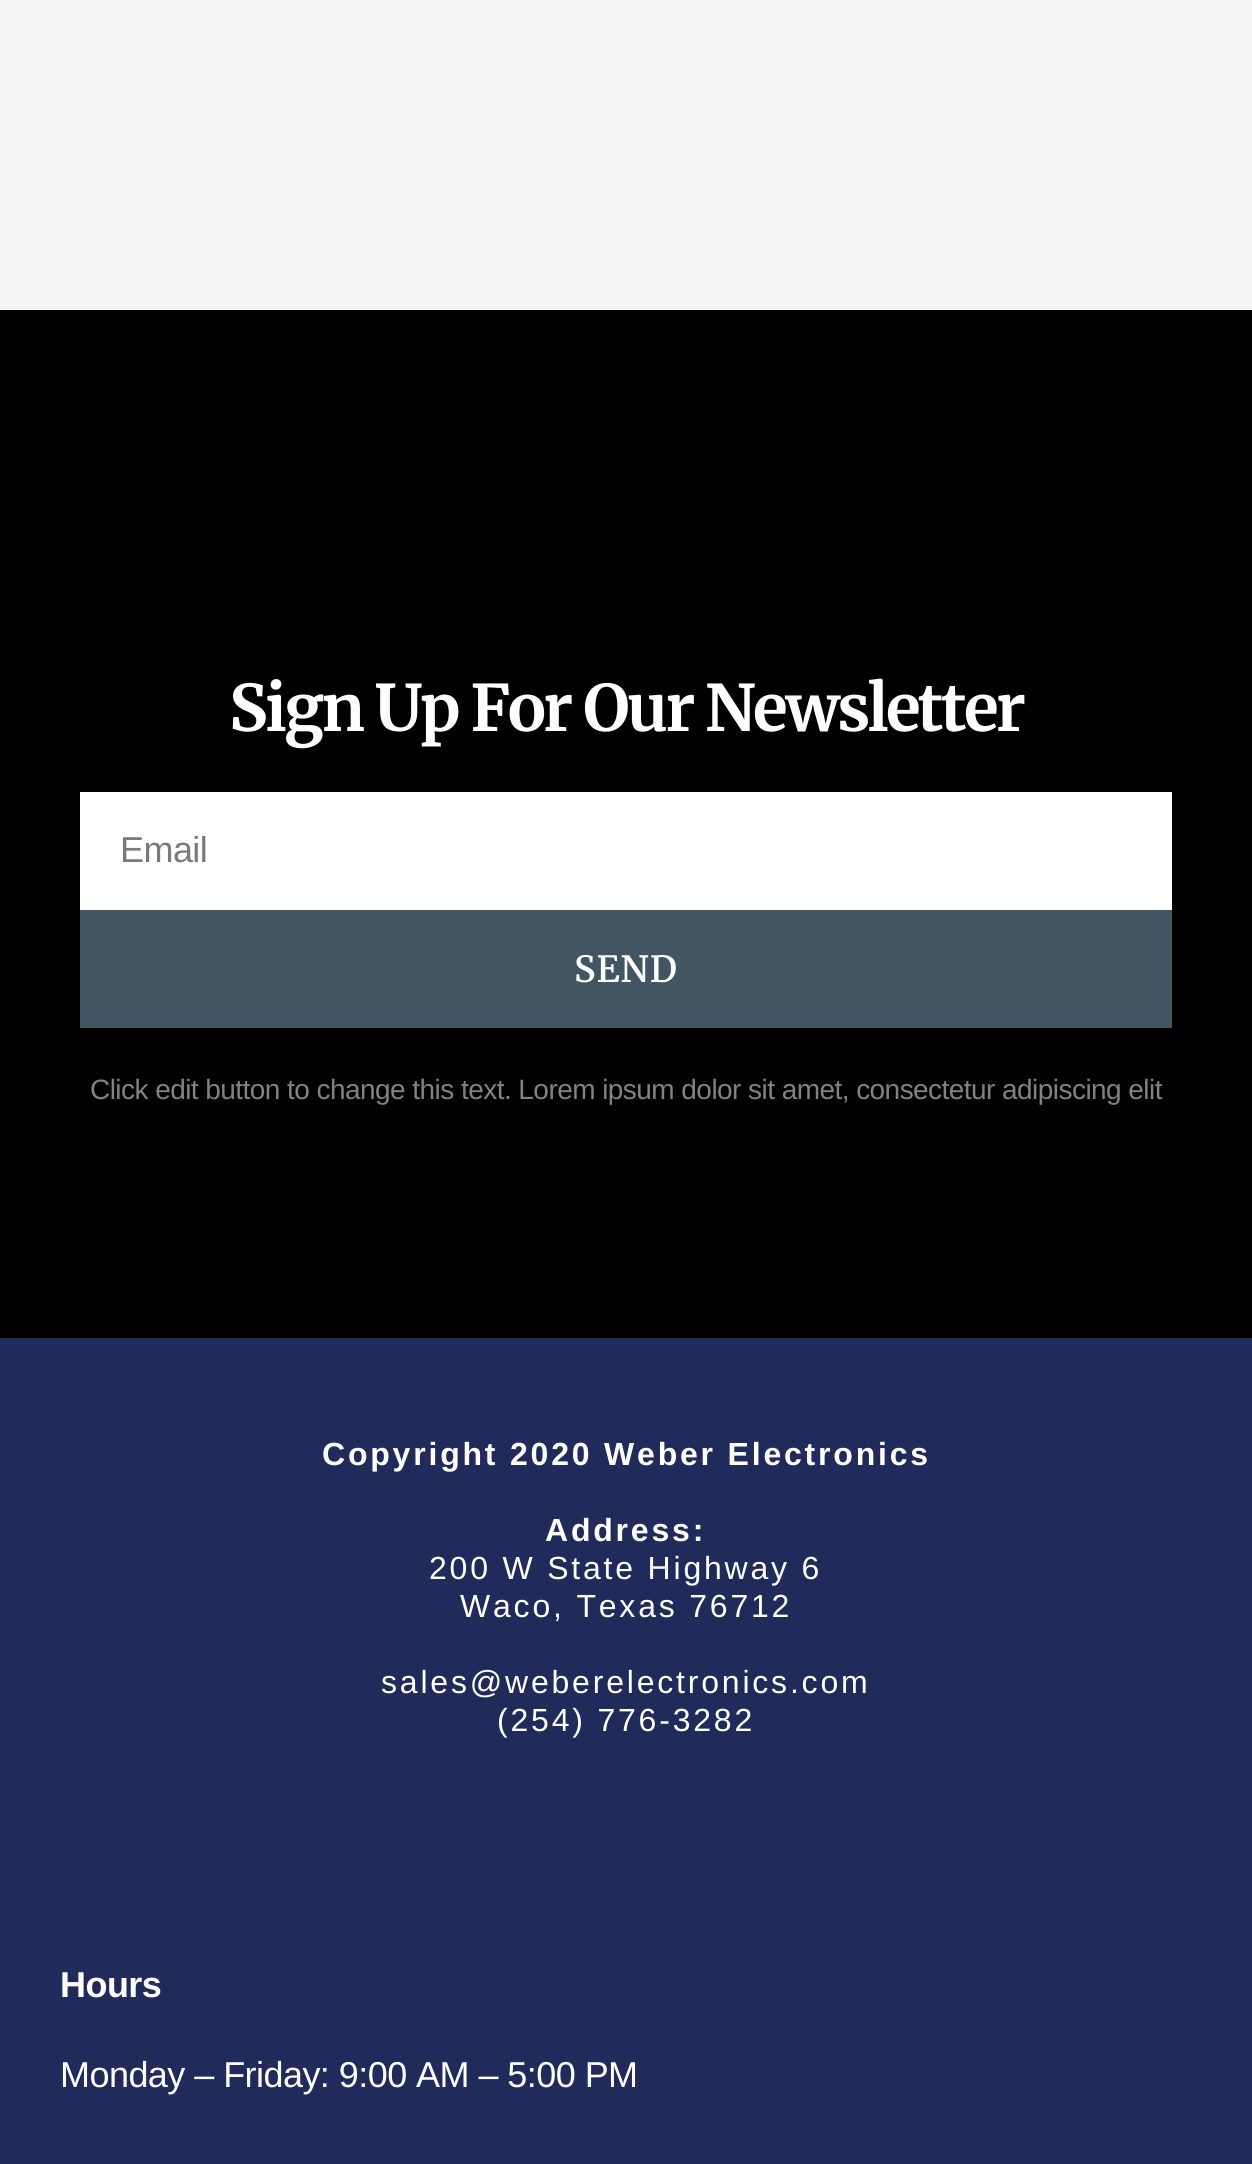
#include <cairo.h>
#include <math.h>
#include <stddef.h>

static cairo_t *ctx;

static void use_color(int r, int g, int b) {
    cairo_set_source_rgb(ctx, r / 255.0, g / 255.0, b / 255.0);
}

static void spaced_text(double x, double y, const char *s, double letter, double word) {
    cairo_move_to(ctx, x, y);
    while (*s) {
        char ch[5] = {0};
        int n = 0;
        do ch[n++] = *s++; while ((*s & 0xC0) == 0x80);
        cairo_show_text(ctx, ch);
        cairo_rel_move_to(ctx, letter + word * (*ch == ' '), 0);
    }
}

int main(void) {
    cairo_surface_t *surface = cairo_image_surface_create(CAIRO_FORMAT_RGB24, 1252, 2164);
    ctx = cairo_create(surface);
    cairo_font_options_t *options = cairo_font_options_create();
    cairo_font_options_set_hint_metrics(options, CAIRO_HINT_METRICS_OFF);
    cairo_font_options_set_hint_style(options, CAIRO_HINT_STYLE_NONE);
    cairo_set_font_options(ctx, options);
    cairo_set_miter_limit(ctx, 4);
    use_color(245, 245, 245);
    cairo_paint(ctx);
    use_color(0, 0, 0);
    cairo_rectangle(ctx, 0, 310, 1252, 1028);
    cairo_fill(ctx);
    cairo_select_font_face(ctx, "Merriweather", CAIRO_FONT_SLANT_NORMAL, CAIRO_FONT_WEIGHT_BOLD);
    cairo_set_font_size(ctx, 64);
    use_color(255, 255, 255);
    spaced_text(229, 731, "Sign Up For Our Newsletter", -2.65, 0);
    cairo_rectangle(ctx, 80, 792, 1092, 118);
    cairo_fill(ctx);
    cairo_select_font_face(ctx, "Liberation Sans", CAIRO_FONT_SLANT_NORMAL, CAIRO_FONT_WEIGHT_NORMAL);
    cairo_set_font_size(ctx, 36);
    use_color(121, 122, 124);
    spaced_text(120, 862, "Email", -0.55, 0);
    use_color(66, 85, 98);
    cairo_rectangle(ctx, 80, 910, 1092, 118);
    cairo_fill(ctx);
    cairo_select_font_face(ctx, "Merriweather SemiBold", CAIRO_FONT_SLANT_NORMAL, CAIRO_FONT_WEIGHT_NORMAL);
    use_color(255, 255, 255);
    spaced_text(574, 982, "SEND", 1, 0);
    cairo_select_font_face(ctx, "Liberation Sans", CAIRO_FONT_SLANT_NORMAL, CAIRO_FONT_WEIGHT_NORMAL);
    cairo_set_font_size(ctx, 28);
    use_color(130, 130, 130);
    spaced_text(90, 1099, "Click edit button to change this text. Lorem ipsum dolor sit amet, consectetur adipiscing elit", -0.55, 0);
    use_color(32, 43, 91);
    cairo_rectangle(ctx, 0, 1338, 1252, 826);
    cairo_fill(ctx);
    cairo_select_font_face(ctx, "Liberation Sans", CAIRO_FONT_SLANT_NORMAL, CAIRO_FONT_WEIGHT_BOLD);
    cairo_set_font_size(ctx, 32);
    use_color(255, 255, 255);
    spaced_text(322, 1465, "Copyright 2020 Weber Electronics", 2.8, 0);
    spaced_text(545, 1541, "Address:", 2.8, 0);
    cairo_select_font_face(ctx, "Liberation Sans", CAIRO_FONT_SLANT_NORMAL, CAIRO_FONT_WEIGHT_NORMAL);
    spaced_text(429, 1579, "200 W State Highway 6", 2.8, 0);
    spaced_text(460, 1617, "Waco, Texas 76712", 2.8, 0);
    spaced_text(381, 1693, "sales@weberelectronics.com", 2.8, 0);
    spaced_text(497, 1731, "(254) 776-3282", 2.8, 0);
    cairo_select_font_face(ctx, "Liberation Sans", CAIRO_FONT_SLANT_NORMAL, CAIRO_FONT_WEIGHT_BOLD);
    cairo_set_font_size(ctx, 36);
    spaced_text(60, 1997, "Hours", -0.55, 0);
    cairo_select_font_face(ctx, "Liberation Sans", CAIRO_FONT_SLANT_NORMAL, CAIRO_FONT_WEIGHT_NORMAL);
    spaced_text(60, 2087, "Monday – Friday: 9:00 AM – 5:00 PM", -0.55, 0);
    cairo_surface_write_to_png(surface, "result.png");
    cairo_font_options_destroy(options);
    cairo_destroy(ctx);
    cairo_surface_destroy(surface);
    return 0;
}
